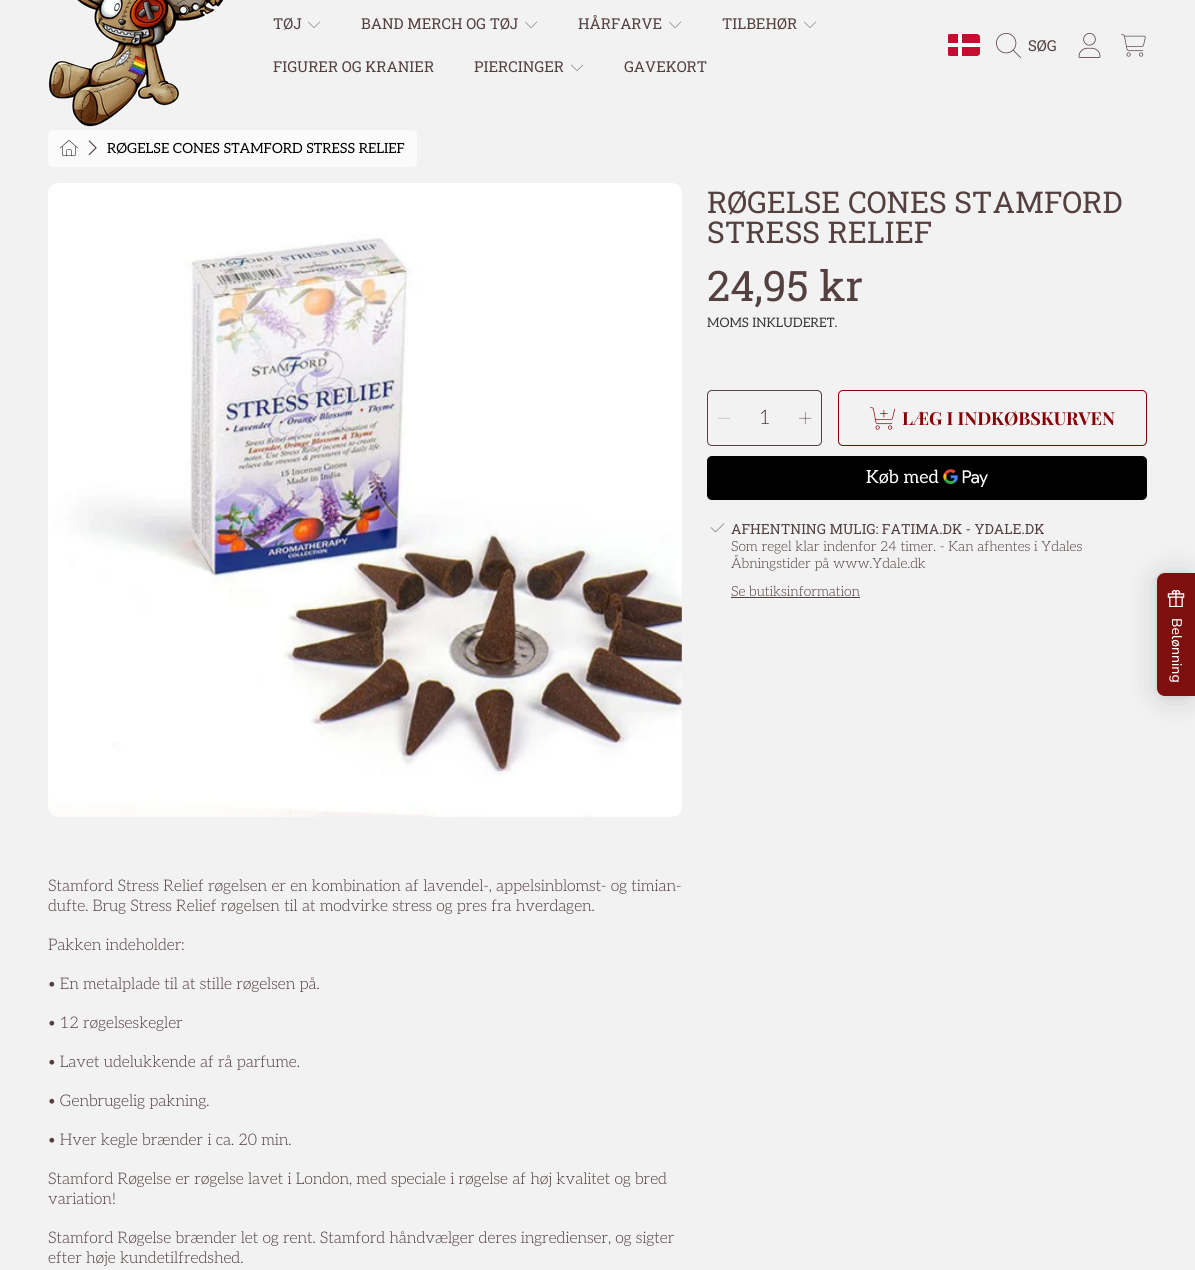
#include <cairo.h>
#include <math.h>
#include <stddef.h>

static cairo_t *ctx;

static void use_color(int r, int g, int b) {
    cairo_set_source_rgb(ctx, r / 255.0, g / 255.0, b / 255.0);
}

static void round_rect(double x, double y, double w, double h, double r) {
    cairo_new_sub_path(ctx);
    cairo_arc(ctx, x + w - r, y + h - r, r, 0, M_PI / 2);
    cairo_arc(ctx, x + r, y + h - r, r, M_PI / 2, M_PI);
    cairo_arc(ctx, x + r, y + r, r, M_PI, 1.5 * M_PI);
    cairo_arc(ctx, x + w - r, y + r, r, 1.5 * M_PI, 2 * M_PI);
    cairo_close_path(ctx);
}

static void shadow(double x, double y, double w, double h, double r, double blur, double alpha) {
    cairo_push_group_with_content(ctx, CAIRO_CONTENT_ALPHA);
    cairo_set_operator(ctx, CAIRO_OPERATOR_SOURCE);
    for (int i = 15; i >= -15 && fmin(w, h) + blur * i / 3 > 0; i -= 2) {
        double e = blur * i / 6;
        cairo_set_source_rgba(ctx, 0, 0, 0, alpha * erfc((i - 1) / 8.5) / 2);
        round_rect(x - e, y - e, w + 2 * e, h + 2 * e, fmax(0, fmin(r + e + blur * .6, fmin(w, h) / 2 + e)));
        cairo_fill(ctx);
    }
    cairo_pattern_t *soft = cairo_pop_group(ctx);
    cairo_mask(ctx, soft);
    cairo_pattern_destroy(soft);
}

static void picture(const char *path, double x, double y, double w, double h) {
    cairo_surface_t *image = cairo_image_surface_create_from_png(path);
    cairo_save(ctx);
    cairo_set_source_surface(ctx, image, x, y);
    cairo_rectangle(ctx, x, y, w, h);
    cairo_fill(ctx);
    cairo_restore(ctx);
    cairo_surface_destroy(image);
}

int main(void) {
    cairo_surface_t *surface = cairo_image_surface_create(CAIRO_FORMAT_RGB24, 1195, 1270);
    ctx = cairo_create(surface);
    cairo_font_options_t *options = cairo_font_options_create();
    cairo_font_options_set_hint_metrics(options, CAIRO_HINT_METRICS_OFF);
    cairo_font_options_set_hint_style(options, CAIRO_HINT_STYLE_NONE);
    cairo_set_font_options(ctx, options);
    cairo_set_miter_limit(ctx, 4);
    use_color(242, 242, 242);
    cairo_paint(ctx);
    picture("img1.png", 48, 0, 176, 127);
    cairo_select_font_face(ctx, "Roboto Slab", CAIRO_FONT_SLANT_NORMAL, CAIRO_FONT_WEIGHT_NORMAL);
    cairo_set_font_size(ctx, 15);
    use_color(84, 64, 64);
    cairo_move_to(ctx, 273, 29);
    cairo_show_text(ctx, "TØJ");
    picture("img2.png", 308, 21, 12, 7);
    cairo_move_to(ctx, 361, 29);
    cairo_show_text(ctx, "BAND MERCH OG TØJ");
    picture("img2.png", 525, 21, 12, 7);
    cairo_move_to(ctx, 578, 29);
    cairo_show_text(ctx, "HÅRFARVE");
    picture("img2.png", 669, 21, 12, 7);
    cairo_move_to(ctx, 722, 29);
    cairo_show_text(ctx, "TILBEHØR");
    picture("img2.png", 804, 21, 12, 7);
    cairo_move_to(ctx, 273, 72);
    cairo_show_text(ctx, "FIGURER OG KRANIER");
    cairo_move_to(ctx, 474, 72);
    cairo_show_text(ctx, "PIERCINGER");
    picture("img2.png", 571, 64, 12, 7);
    cairo_move_to(ctx, 624, 72);
    cairo_show_text(ctx, "GAVEKORT");
    cairo_save(ctx);
    round_rect(947, 34, 33, 22, 3);
    cairo_clip(ctx);
    use_color(198, 12, 48);
    cairo_new_path(ctx);
    cairo_move_to(ctx, 948, 34);
    cairo_line_to(ctx, 977, 34);
    cairo_curve_to(ctx, 978.5, 34, 980, 35.5, 980, 37);
    cairo_line_to(ctx, 980, 53);
    cairo_curve_to(ctx, 980, 54.5, 978.5, 56, 977, 56);
    cairo_line_to(ctx, 948, 56);
    cairo_close_path(ctx);
    cairo_fill(ctx);
    cairo_restore(ctx);
    use_color(255, 255, 255);
    cairo_rectangle(ctx, 958, 34, 4, 22);
    cairo_fill(ctx);
    cairo_rectangle(ctx, 948, 43, 32, 4);
    cairo_fill(ctx);
    picture("img3.png", 996, 33, 25, 25);
    use_color(84, 64, 64);
    cairo_move_to(ctx, 1028, 51);
    cairo_show_text(ctx, "SØG");
    picture("img4.png", 1078, 33, 23, 25);
    picture("img5.png", 1121, 34, 25, 23);
    use_color(251, 251, 251);
    round_rect(48, 130, 369, 37, 5);
    cairo_fill(ctx);
    picture("img6.png", 60, 140, 18, 16);
    picture("img7.png", 88, 140, 9, 16);
    cairo_select_font_face(ctx, "Aleo", CAIRO_FONT_SLANT_NORMAL, CAIRO_FONT_WEIGHT_NORMAL);
    cairo_set_font_size(ctx, 14);
    use_color(0, 0, 0);
    cairo_move_to(ctx, 107, 153);
    cairo_show_text(ctx, "RØGELSE CONES STAMFORD STRESS RELIEF");
    picture("img8.png", 48, 183, 634, 634);
    cairo_select_font_face(ctx, "Roboto Slab", CAIRO_FONT_SLANT_NORMAL, CAIRO_FONT_WEIGHT_NORMAL);
    cairo_set_font_size(ctx, 30);
    use_color(84, 64, 64);
    cairo_move_to(ctx, 707, 213);
    cairo_show_text(ctx, "RØGELSE CONES STAMFORD");
    cairo_move_to(ctx, 707, 243);
    cairo_show_text(ctx, "STRESS RELIEF");
    cairo_set_font_size(ctx, 42);
    cairo_move_to(ctx, 707, 301);
    cairo_show_text(ctx, "24,95 kr");
    cairo_select_font_face(ctx, "Aleo", CAIRO_FONT_SLANT_NORMAL, CAIRO_FONT_WEIGHT_NORMAL);
    cairo_set_font_size(ctx, 13);
    use_color(58, 58, 62);
    cairo_move_to(ctx, 707, 327);
    cairo_show_text(ctx, "MOMS INKLUDERET.");
    round_rect(707.5, 390.5, 114, 55, 4.5);
    use_color(84, 64, 64);
    cairo_set_line_width(ctx, 1);
    cairo_stroke(ctx);
    picture("img9.png", 718, 417, 13, 2);
    cairo_select_font_face(ctx, "Aleo Light", CAIRO_FONT_SLANT_NORMAL, CAIRO_FONT_WEIGHT_NORMAL);
    cairo_set_font_size(ctx, 20);
    cairo_move_to(ctx, 759, 424);
    cairo_show_text(ctx, "1");
    picture("img10.png", 799, 412, 13, 13);
    round_rect(838.5, 390.5, 308, 55, 4.5);
    use_color(135, 0, 6);
    cairo_stroke(ctx);
    picture("img11.png", 870, 407, 25, 23);
    cairo_select_font_face(ctx, "Playfair Display", CAIRO_FONT_SLANT_NORMAL, CAIRO_FONT_WEIGHT_BOLD);
    cairo_set_font_size(ctx, 18);
    cairo_move_to(ctx, 902, 425);
    cairo_show_text(ctx, "LÆG I INDKØBSKURVEN");
    use_color(0, 0, 0);
    round_rect(707, 456, 440, 44, 5);
    cairo_fill(ctx);
    cairo_select_font_face(ctx, "Aleo", CAIRO_FONT_SLANT_NORMAL, CAIRO_FONT_WEIGHT_NORMAL);
    use_color(255, 255, 255);
    cairo_move_to(ctx, 866, 483);
    cairo_show_text(ctx, "Køb med");
    picture("img12.png", 943, 469, 45, 18);
    picture("img13.png", 710, 523, 15, 10);
    cairo_select_font_face(ctx, "Roboto Slab", CAIRO_FONT_SLANT_NORMAL, CAIRO_FONT_WEIGHT_NORMAL);
    cairo_set_font_size(ctx, 14);
    use_color(84, 64, 64);
    cairo_move_to(ctx, 731, 534);
    cairo_show_text(ctx, "AFHENTNING MULIG: FATIMA.DK - YDALE.DK");
    cairo_select_font_face(ctx, "Aleo Light", CAIRO_FONT_SLANT_NORMAL, CAIRO_FONT_WEIGHT_NORMAL);
    cairo_move_to(ctx, 731, 551);
    cairo_show_text(ctx, "Som regel klar indenfor 24 timer. - Kan afhentes i Ydales");
    cairo_move_to(ctx, 731, 568);
    cairo_show_text(ctx, "Åbningstider på www.Ydale.dk");
    cairo_move_to(ctx, 731, 596);
    cairo_show_text(ctx, "Se butiksinformation");
    cairo_rectangle(ctx, 731, 597, 129, 1);
    cairo_fill(ctx);
    cairo_set_font_size(ctx, 16);
    cairo_move_to(ctx, 48, 891);
    cairo_show_text(ctx, "Stamford Stress Relief røgelsen er en kombination af lavendel-, appelsinblomst- og timian-");
    cairo_move_to(ctx, 48, 911);
    cairo_show_text(ctx, "dufte. Brug Stress Relief røgelsen til at modvirke stress og pres fra hverdagen.");
    cairo_move_to(ctx, 48, 950);
    cairo_show_text(ctx, "Pakken indeholder:");
    cairo_move_to(ctx, 48, 989);
    cairo_show_text(ctx, "• En metalplade til at stille røgelsen på.");
    cairo_move_to(ctx, 48, 1028);
    cairo_show_text(ctx, "• 12 røgelseskegler");
    cairo_move_to(ctx, 48, 1067);
    cairo_show_text(ctx, "• Lavet udelukkende af rå parfume.");
    cairo_move_to(ctx, 48, 1106);
    cairo_show_text(ctx, "• Genbrugelig pakning.");
    cairo_move_to(ctx, 48, 1145);
    cairo_show_text(ctx, "• Hver kegle brænder i ca. 20 min.");
    cairo_move_to(ctx, 48, 1184);
    cairo_show_text(ctx, "Stamford Røgelse er røgelse lavet i London, med speciale i røgelse af høj kvalitet og bred");
    cairo_move_to(ctx, 48, 1204);
    cairo_show_text(ctx, "variation!");
    cairo_move_to(ctx, 48, 1243);
    cairo_show_text(ctx, "Stamford Røgelse brænder let og rent. Stamford håndvælger deres ingredienser, og sigter");
    cairo_move_to(ctx, 48, 1263);
    cairo_show_text(ctx, "efter høje kundetilfredshed.");
    use_color(0, 0, 0);
    shadow(1157, 575, 38, 123, 8, 16, 0.16);
    shadow(1157, 574, 38, 123, 8, 3, 0.06);
    use_color(127, 14, 14);
    cairo_new_path(ctx);
    cairo_move_to(ctx, 1165, 573);
    cairo_line_to(ctx, 1195, 573);
    cairo_line_to(ctx, 1195, 696);
    cairo_line_to(ctx, 1165, 696);
    cairo_curve_to(ctx, 1160.5, 696, 1157, 692.5, 1157, 688);
    cairo_line_to(ctx, 1157, 581);
    cairo_curve_to(ctx, 1157, 576.5, 1160.5, 573, 1165, 573);
    cairo_close_path(ctx);
    cairo_fill(ctx);
    picture("img14.png", 1167, 589, 18, 18);
    cairo_select_font_face(ctx, "Nunito Medium", CAIRO_FONT_SLANT_NORMAL, CAIRO_FONT_WEIGHT_NORMAL);
    cairo_set_font_size(ctx, 14);
    use_color(255, 255, 255);
    cairo_save(ctx);
    cairo_translate(ctx, 1172, 618);
    cairo_rotate(ctx, 90 * M_PI / 180);
    cairo_move_to(ctx, 0, 0);
    cairo_show_text(ctx, "Belønning");
    cairo_restore(ctx);
    cairo_surface_write_to_png(surface, "result.png");
    cairo_font_options_destroy(options);
    cairo_destroy(ctx);
    cairo_surface_destroy(surface);
    return 0;
}
